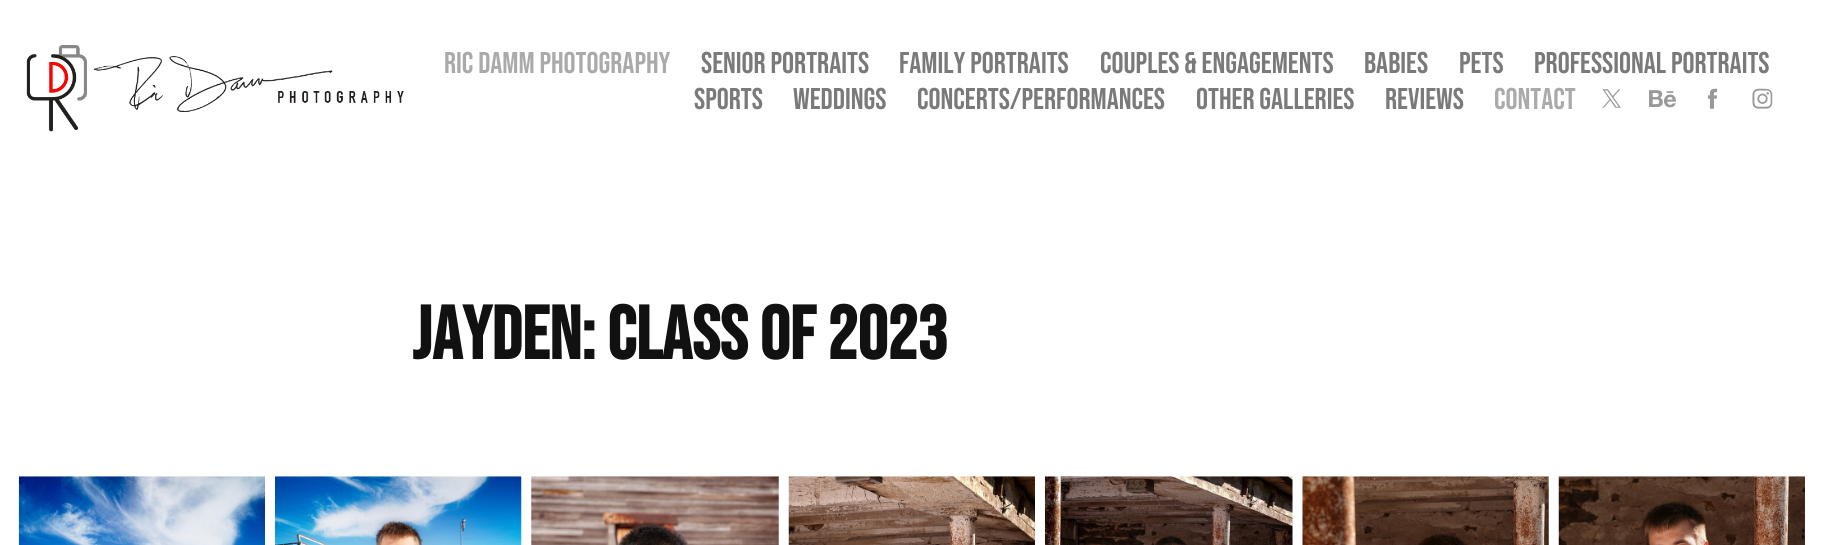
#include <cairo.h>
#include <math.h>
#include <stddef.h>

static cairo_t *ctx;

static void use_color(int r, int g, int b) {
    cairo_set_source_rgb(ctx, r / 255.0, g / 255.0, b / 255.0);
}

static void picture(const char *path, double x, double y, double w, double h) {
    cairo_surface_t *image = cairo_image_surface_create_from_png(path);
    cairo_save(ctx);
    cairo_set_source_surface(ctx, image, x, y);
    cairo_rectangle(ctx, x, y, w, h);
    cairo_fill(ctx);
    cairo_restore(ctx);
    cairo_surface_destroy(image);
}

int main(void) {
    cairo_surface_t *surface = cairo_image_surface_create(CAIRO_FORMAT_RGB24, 1823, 545);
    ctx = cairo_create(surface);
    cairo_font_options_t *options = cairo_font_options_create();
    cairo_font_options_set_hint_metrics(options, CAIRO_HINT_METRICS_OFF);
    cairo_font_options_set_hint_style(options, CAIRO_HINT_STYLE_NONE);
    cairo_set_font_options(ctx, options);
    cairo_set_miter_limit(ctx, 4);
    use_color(255, 255, 255);
    cairo_paint(ctx);
    picture("img1.png", 26, 45, 378, 87);
    cairo_select_font_face(ctx, "Bebas Neue", CAIRO_FONT_SLANT_NORMAL, CAIRO_FONT_WEIGHT_NORMAL);
    cairo_set_font_size(ctx, 30);
    use_color(170, 170, 170);
    cairo_move_to(ctx, 444, 73);
    cairo_show_text(ctx, "RIC DAMM PHOTOGRAPHY");
    use_color(122, 122, 122);
    cairo_move_to(ctx, 701, 73);
    cairo_show_text(ctx, "SENIOR PORTRAITS");
    cairo_move_to(ctx, 899, 73);
    cairo_show_text(ctx, "FAMILY PORTRAITS");
    cairo_move_to(ctx, 1100, 73);
    cairo_show_text(ctx, "COUPLES & ENGAGEMENTS");
    cairo_move_to(ctx, 1364, 73);
    cairo_show_text(ctx, "BABIES");
    cairo_move_to(ctx, 1459, 73);
    cairo_show_text(ctx, "PETS");
    cairo_move_to(ctx, 1534, 73);
    cairo_show_text(ctx, "PROFESSIONAL PORTRAITS");
    cairo_move_to(ctx, 694, 109);
    cairo_show_text(ctx, "SPORTS");
    cairo_move_to(ctx, 793, 109);
    cairo_show_text(ctx, "WEDDINGS");
    cairo_move_to(ctx, 917, 109);
    cairo_show_text(ctx, "CONCERTS/PERFORMANCES");
    cairo_move_to(ctx, 1196, 109);
    cairo_show_text(ctx, "OTHER GALLERIES");
    cairo_move_to(ctx, 1385, 109);
    cairo_show_text(ctx, "REVIEWS");
    use_color(170, 170, 170);
    cairo_move_to(ctx, 1494, 109);
    cairo_show_text(ctx, "CONTACT");
    picture("img2.png", 1602, 89, 19, 19);
    picture("img3.png", 1649, 90, 27, 18);
    picture("img4.png", 1707, 88, 11, 21);
    picture("img5.png", 1752, 88, 21, 21);
    cairo_select_font_face(ctx, "Bebas Neue", CAIRO_FONT_SLANT_NORMAL, CAIRO_FONT_WEIGHT_BOLD);
    cairo_set_font_size(ctx, 75);
    use_color(17, 17, 17);
    cairo_move_to(ctx, 412, 359);
    cairo_show_text(ctx, "Jayden: Class of 2023");
    picture("img6.png", 18, 476, 247, 69);
    picture("img7.png", 275, 476, 247, 69);
    picture("img8.png", 531, 476, 248, 69);
    picture("img9.png", 788, 476, 247, 69);
    picture("img10.png", 1045, 476, 248, 69);
    picture("img11.png", 1302, 476, 247, 69);
    picture("img12.png", 1558, 476, 247, 69);
    cairo_surface_write_to_png(surface, "result.png");
    cairo_font_options_destroy(options);
    cairo_destroy(ctx);
    cairo_surface_destroy(surface);
    return 0;
}
